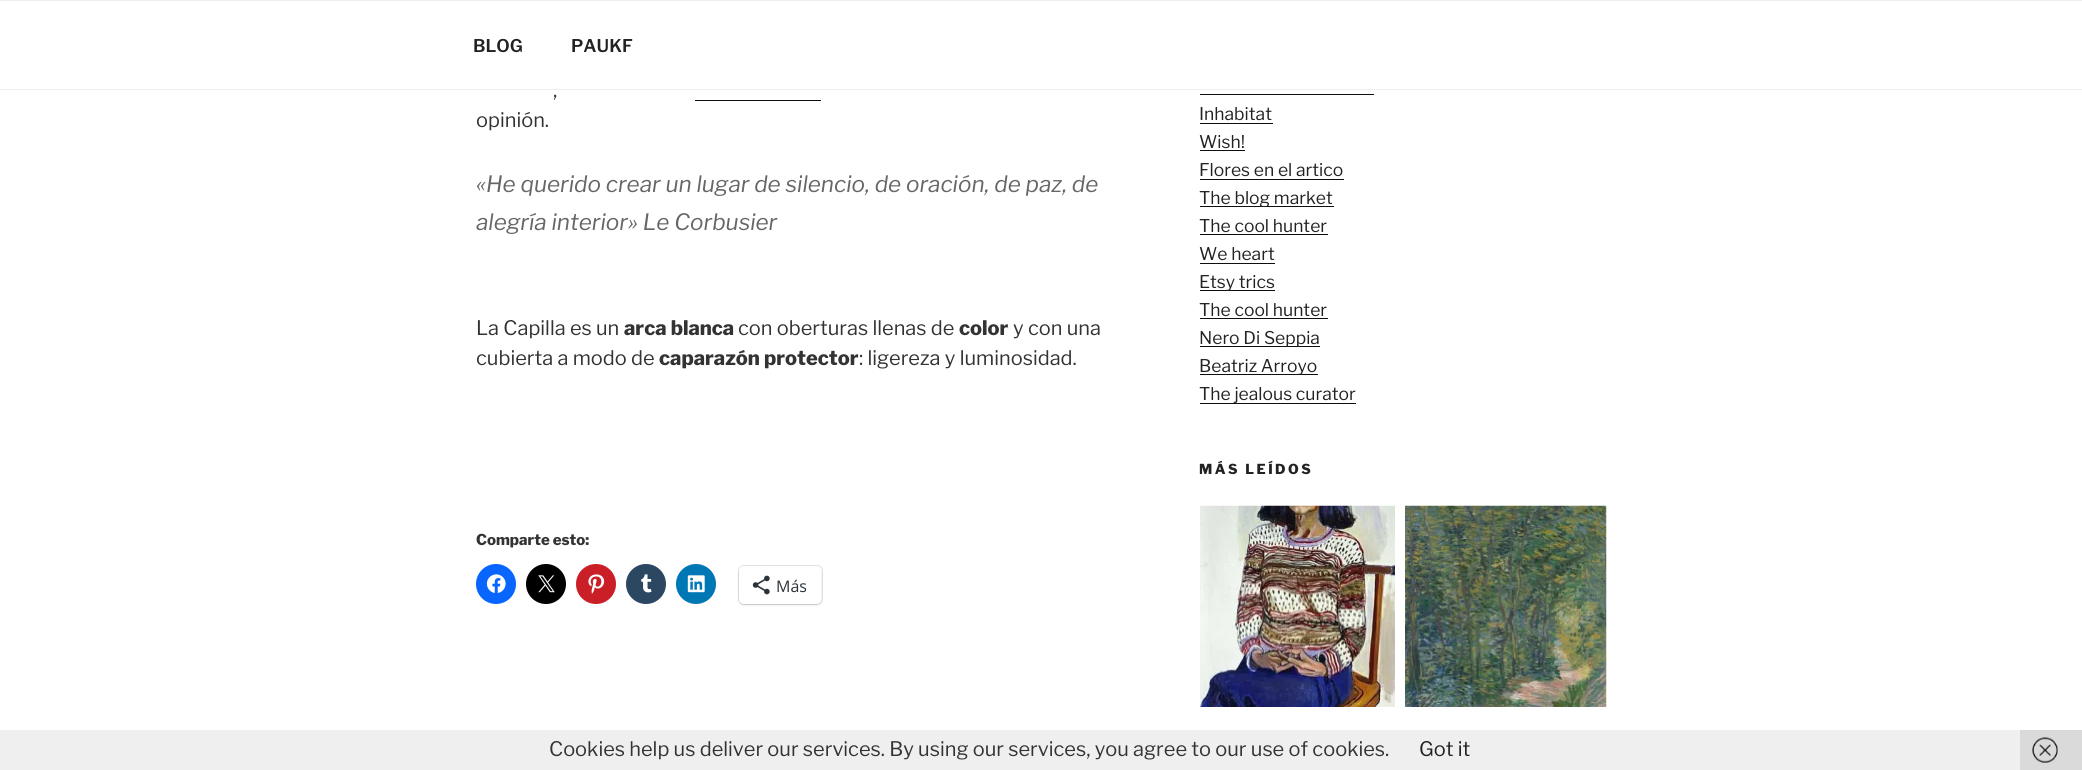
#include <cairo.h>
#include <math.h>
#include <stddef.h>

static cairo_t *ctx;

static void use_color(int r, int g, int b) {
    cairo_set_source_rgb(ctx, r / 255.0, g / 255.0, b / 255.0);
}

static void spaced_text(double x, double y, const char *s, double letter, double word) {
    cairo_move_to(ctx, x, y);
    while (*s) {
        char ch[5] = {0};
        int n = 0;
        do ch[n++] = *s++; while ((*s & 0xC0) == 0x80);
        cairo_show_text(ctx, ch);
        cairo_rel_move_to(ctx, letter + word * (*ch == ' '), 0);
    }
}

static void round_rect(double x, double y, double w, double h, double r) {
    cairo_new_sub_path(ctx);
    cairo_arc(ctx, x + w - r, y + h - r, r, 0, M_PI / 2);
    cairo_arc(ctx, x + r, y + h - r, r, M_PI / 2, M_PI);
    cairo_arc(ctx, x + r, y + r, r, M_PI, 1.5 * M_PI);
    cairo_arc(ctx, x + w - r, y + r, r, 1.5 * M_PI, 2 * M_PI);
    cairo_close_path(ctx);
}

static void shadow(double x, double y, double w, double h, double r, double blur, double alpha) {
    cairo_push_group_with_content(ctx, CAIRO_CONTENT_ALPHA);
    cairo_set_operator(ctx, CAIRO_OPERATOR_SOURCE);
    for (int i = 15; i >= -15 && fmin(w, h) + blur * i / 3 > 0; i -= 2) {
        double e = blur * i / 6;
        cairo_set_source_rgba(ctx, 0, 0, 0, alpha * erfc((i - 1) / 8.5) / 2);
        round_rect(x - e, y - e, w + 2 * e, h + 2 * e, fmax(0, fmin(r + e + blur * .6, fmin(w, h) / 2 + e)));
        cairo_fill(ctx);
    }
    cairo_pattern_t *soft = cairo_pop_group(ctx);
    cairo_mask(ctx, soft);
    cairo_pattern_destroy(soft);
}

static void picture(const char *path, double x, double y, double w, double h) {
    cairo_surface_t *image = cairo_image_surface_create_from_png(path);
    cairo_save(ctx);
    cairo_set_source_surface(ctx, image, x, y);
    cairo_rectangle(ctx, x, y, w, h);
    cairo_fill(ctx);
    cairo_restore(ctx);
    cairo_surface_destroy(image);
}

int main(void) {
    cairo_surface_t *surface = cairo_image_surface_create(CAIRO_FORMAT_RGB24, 2082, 770);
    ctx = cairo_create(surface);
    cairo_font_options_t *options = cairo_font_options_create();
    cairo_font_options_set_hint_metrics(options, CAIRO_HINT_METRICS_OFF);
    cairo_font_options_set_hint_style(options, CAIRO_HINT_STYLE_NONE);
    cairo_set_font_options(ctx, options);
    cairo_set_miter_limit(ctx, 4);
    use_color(255, 255, 255);
    cairo_paint(ctx);
    use_color(238, 238, 238);
    cairo_rectangle(ctx, 0, 0, 2082, 1);
    cairo_fill(ctx);
    cairo_rectangle(ctx, 0, 89, 2082, 1);
    cairo_fill(ctx);
    cairo_select_font_face(ctx, "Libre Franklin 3 Thin", CAIRO_FONT_SLANT_NORMAL, CAIRO_FONT_WEIGHT_NORMAL);
    cairo_set_font_size(ctx, 17.5);
    use_color(34, 34, 34);
    cairo_move_to(ctx, 473, 52);
    cairo_show_text(ctx, "BLOG");
    cairo_move_to(ctx, 571, 52);
    cairo_show_text(ctx, "PAUKF");
    cairo_select_font_face(ctx, "Libre Franklin Thin", CAIRO_FONT_SLANT_NORMAL, CAIRO_FONT_WEIGHT_NORMAL);
    cairo_set_font_size(ctx, 20);
    use_color(51, 51, 51);
    cairo_move_to(ctx, 553, 97);
    cairo_show_text(ctx, ",");
    use_color(15, 15, 15);
    cairo_rectangle(ctx, 695, 100, 126, 1);
    cairo_fill(ctx);
    use_color(51, 51, 51);
    cairo_move_to(ctx, 476, 127);
    cairo_show_text(ctx, "opinión.");
    cairo_select_font_face(ctx, "Libre Franklin Thin", CAIRO_FONT_SLANT_ITALIC, CAIRO_FONT_WEIGHT_NORMAL);
    cairo_set_font_size(ctx, 22.5);
    use_color(102, 102, 102);
    cairo_move_to(ctx, 476, 192);
    cairo_show_text(ctx, "«He querido crear un lugar de silencio, de oración, de paz, de");
    cairo_move_to(ctx, 476, 230);
    cairo_show_text(ctx, "alegría interior» Le Corbusier");
    cairo_select_font_face(ctx, "Libre Franklin Thin", CAIRO_FONT_SLANT_NORMAL, CAIRO_FONT_WEIGHT_NORMAL);
    cairo_set_font_size(ctx, 20);
    use_color(51, 51, 51);
    cairo_move_to(ctx, 476, 335);
    cairo_show_text(ctx, "La Capilla es un");
    cairo_select_font_face(ctx, "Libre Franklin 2 Thin", CAIRO_FONT_SLANT_NORMAL, CAIRO_FONT_WEIGHT_NORMAL);
    cairo_move_to(ctx, 624, 335);
    cairo_show_text(ctx, "arca blanca");
    cairo_select_font_face(ctx, "Libre Franklin Thin", CAIRO_FONT_SLANT_NORMAL, CAIRO_FONT_WEIGHT_NORMAL);
    cairo_move_to(ctx, 738, 335);
    cairo_show_text(ctx, "con oberturas llenas de");
    cairo_select_font_face(ctx, "Libre Franklin 2 Thin", CAIRO_FONT_SLANT_NORMAL, CAIRO_FONT_WEIGHT_NORMAL);
    cairo_move_to(ctx, 959, 335);
    cairo_show_text(ctx, "color");
    cairo_select_font_face(ctx, "Libre Franklin Thin", CAIRO_FONT_SLANT_NORMAL, CAIRO_FONT_WEIGHT_NORMAL);
    cairo_move_to(ctx, 1013, 335);
    cairo_show_text(ctx, "y con una");
    cairo_move_to(ctx, 476, 365);
    cairo_show_text(ctx, "cubierta a modo de");
    cairo_select_font_face(ctx, "Libre Franklin 2 Thin", CAIRO_FONT_SLANT_NORMAL, CAIRO_FONT_WEIGHT_NORMAL);
    cairo_move_to(ctx, 659, 365);
    cairo_show_text(ctx, "caparazón protector");
    cairo_select_font_face(ctx, "Libre Franklin Thin", CAIRO_FONT_SLANT_NORMAL, CAIRO_FONT_WEIGHT_NORMAL);
    cairo_move_to(ctx, 859, 365);
    cairo_show_text(ctx, ": ligereza y luminosidad.");
    cairo_select_font_face(ctx, "Libre Franklin 2 Thin", CAIRO_FONT_SLANT_NORMAL, CAIRO_FONT_WEIGHT_NORMAL);
    cairo_set_font_size(ctx, 15);
    cairo_move_to(ctx, 476, 545);
    cairo_show_text(ctx, "Comparte esto:");
    use_color(8, 102, 255);
    cairo_new_path(ctx);
    cairo_arc(ctx, 496, 584, 20, 0, 2 * M_PI);
    cairo_fill(ctx);
    picture("img1.png", 486, 574, 20, 19);
    use_color(0, 0, 0);
    cairo_arc(ctx, 546, 584, 20, 0, 2 * M_PI);
    cairo_fill(ctx);
    picture("img2.png", 538, 575, 17, 18);
    use_color(202, 31, 39);
    cairo_arc(ctx, 596, 584, 20, 0, 2 * M_PI);
    cairo_fill(ctx);
    picture("img3.png", 588, 574, 17, 20);
    use_color(44, 71, 98);
    cairo_arc(ctx, 646, 584, 20, 0, 2 * M_PI);
    cairo_fill(ctx);
    picture("img4.png", 641, 574, 11, 19);
    use_color(0, 119, 181);
    cairo_arc(ctx, 696, 584, 20, 0, 2 * M_PI);
    cairo_fill(ctx);
    picture("img5.png", 687, 575, 18, 18);
    round_rect(738.5, 565.5, 84, 39, 5.5);
    use_color(224, 224, 224);
    cairo_set_line_width(ctx, 1);
    cairo_stroke(ctx);
    use_color(0, 0, 0);
    shadow(739, 568, 82, 37, 5, 1, 0.12);
    use_color(255, 255, 255);
    round_rect(739, 566, 82, 38, 5);
    cairo_fill(ctx);
    picture("img6.png", 752, 575, 18, 20);
    cairo_select_font_face(ctx, "Open Sans", CAIRO_FONT_SLANT_NORMAL, CAIRO_FONT_WEIGHT_NORMAL);
    cairo_set_font_size(ctx, 16);
    use_color(44, 51, 56);
    cairo_move_to(ctx, 776, 592);
    cairo_show_text(ctx, "Más");
    use_color(15, 15, 15);
    cairo_rectangle(ctx, 1200, 94, 174, 1);
    cairo_fill(ctx);
    cairo_select_font_face(ctx, "Libre Franklin Thin", CAIRO_FONT_SLANT_NORMAL, CAIRO_FONT_WEIGHT_NORMAL);
    cairo_set_font_size(ctx, 17.5);
    use_color(34, 34, 34);
    cairo_move_to(ctx, 1199, 120);
    cairo_show_text(ctx, "Inhabitat");
    use_color(15, 15, 15);
    cairo_rectangle(ctx, 1200, 123, 73, 1);
    cairo_fill(ctx);
    use_color(34, 34, 34);
    cairo_move_to(ctx, 1199, 148);
    cairo_show_text(ctx, "Wish!");
    use_color(15, 15, 15);
    cairo_rectangle(ctx, 1200, 150, 45, 1);
    cairo_fill(ctx);
    use_color(34, 34, 34);
    cairo_move_to(ctx, 1199, 176);
    cairo_show_text(ctx, "Flores en el artico");
    use_color(15, 15, 15);
    cairo_rectangle(ctx, 1200, 179, 144, 1);
    cairo_fill(ctx);
    cairo_rectangle(ctx, 1200, 206, 134, 1);
    cairo_fill(ctx);
    use_color(34, 34, 34);
    cairo_move_to(ctx, 1199, 204);
    cairo_show_text(ctx, "The blog market");
    cairo_move_to(ctx, 1199, 232);
    cairo_show_text(ctx, "The cool hunter");
    use_color(15, 15, 15);
    cairo_rectangle(ctx, 1200, 234, 128, 1);
    cairo_fill(ctx);
    use_color(34, 34, 34);
    cairo_move_to(ctx, 1199, 260);
    cairo_show_text(ctx, "We heart");
    use_color(15, 15, 15);
    cairo_rectangle(ctx, 1200, 263, 75, 1);
    cairo_fill(ctx);
    cairo_rectangle(ctx, 1200, 290, 75, 1);
    cairo_fill(ctx);
    use_color(34, 34, 34);
    cairo_move_to(ctx, 1199, 288);
    cairo_show_text(ctx, "Etsy trics");
    cairo_move_to(ctx, 1199, 316);
    cairo_show_text(ctx, "The cool hunter");
    use_color(15, 15, 15);
    cairo_rectangle(ctx, 1200, 318, 128, 1);
    cairo_fill(ctx);
    cairo_rectangle(ctx, 1200, 346, 120, 1);
    cairo_fill(ctx);
    use_color(34, 34, 34);
    cairo_move_to(ctx, 1199, 344);
    cairo_show_text(ctx, "Nero Di Seppia");
    use_color(15, 15, 15);
    cairo_rectangle(ctx, 1200, 374, 118, 1);
    cairo_fill(ctx);
    use_color(34, 34, 34);
    cairo_move_to(ctx, 1199, 372);
    cairo_show_text(ctx, "Beatriz Arroyo");
    cairo_move_to(ctx, 1199, 400);
    cairo_show_text(ctx, "The jealous curator");
    use_color(15, 15, 15);
    cairo_rectangle(ctx, 1200, 403, 156, 1);
    cairo_fill(ctx);
    cairo_select_font_face(ctx, "Libre Franklin 2 Thin", CAIRO_FONT_SLANT_NORMAL, CAIRO_FONT_WEIGHT_NORMAL);
    cairo_set_font_size(ctx, 13.75);
    use_color(34, 34, 34);
    spaced_text(1199, 474, "MÁS LEÍDOS", 2.5, 0);
    picture("img7.png", 1200, 505, 195, 202);
    picture("img8.png", 1405, 505, 202, 202);
    cairo_set_source_rgba(ctx, 0.933, 0.933, 0.933, 0.9);
    cairo_rectangle(ctx, 0, 730, 2020, 40);
    cairo_fill(ctx);
    cairo_select_font_face(ctx, "Libre Franklin Thin", CAIRO_FONT_SLANT_NORMAL, CAIRO_FONT_WEIGHT_NORMAL);
    cairo_set_font_size(ctx, 20);
    use_color(51, 51, 51);
    cairo_move_to(ctx, 549, 756);
    cairo_show_text(ctx, "Cookies help us deliver our services. By using our services, you agree to our use of cookies.");
    use_color(34, 34, 34);
    cairo_move_to(ctx, 1419, 756);
    cairo_show_text(ctx, "Got it");
    use_color(218, 218, 218);
    cairo_rectangle(ctx, 2020, 730, 62, 40);
    cairo_fill(ctx);
    picture("img9.png", 2032, 737, 26, 26);
    cairo_surface_write_to_png(surface, "result.png");
    cairo_font_options_destroy(options);
    cairo_destroy(ctx);
    cairo_surface_destroy(surface);
    return 0;
}
